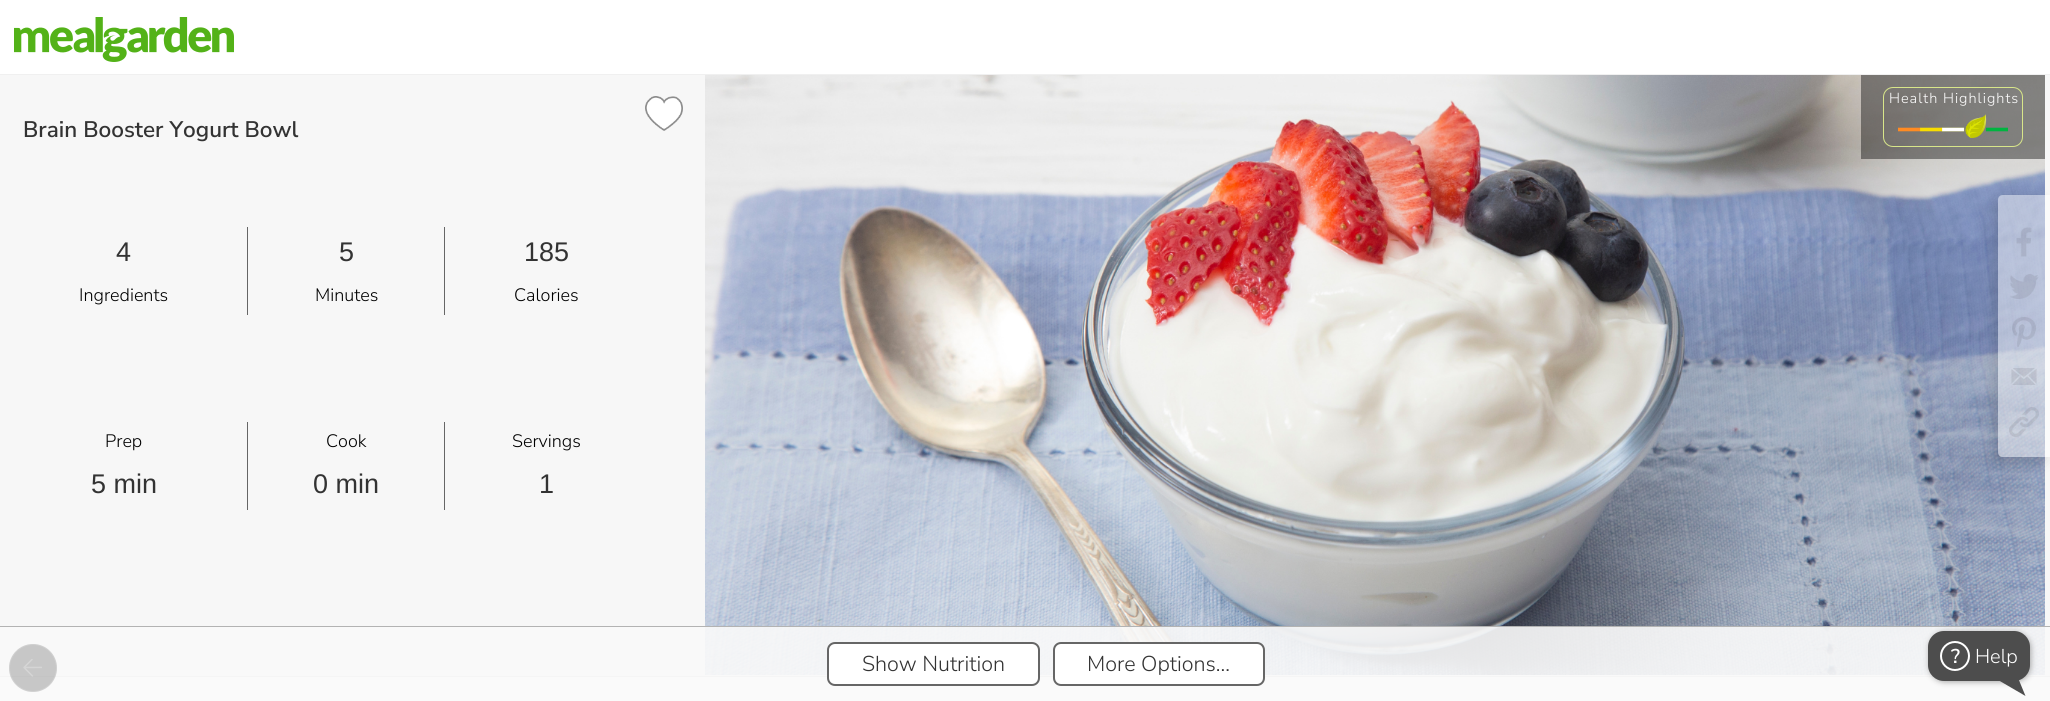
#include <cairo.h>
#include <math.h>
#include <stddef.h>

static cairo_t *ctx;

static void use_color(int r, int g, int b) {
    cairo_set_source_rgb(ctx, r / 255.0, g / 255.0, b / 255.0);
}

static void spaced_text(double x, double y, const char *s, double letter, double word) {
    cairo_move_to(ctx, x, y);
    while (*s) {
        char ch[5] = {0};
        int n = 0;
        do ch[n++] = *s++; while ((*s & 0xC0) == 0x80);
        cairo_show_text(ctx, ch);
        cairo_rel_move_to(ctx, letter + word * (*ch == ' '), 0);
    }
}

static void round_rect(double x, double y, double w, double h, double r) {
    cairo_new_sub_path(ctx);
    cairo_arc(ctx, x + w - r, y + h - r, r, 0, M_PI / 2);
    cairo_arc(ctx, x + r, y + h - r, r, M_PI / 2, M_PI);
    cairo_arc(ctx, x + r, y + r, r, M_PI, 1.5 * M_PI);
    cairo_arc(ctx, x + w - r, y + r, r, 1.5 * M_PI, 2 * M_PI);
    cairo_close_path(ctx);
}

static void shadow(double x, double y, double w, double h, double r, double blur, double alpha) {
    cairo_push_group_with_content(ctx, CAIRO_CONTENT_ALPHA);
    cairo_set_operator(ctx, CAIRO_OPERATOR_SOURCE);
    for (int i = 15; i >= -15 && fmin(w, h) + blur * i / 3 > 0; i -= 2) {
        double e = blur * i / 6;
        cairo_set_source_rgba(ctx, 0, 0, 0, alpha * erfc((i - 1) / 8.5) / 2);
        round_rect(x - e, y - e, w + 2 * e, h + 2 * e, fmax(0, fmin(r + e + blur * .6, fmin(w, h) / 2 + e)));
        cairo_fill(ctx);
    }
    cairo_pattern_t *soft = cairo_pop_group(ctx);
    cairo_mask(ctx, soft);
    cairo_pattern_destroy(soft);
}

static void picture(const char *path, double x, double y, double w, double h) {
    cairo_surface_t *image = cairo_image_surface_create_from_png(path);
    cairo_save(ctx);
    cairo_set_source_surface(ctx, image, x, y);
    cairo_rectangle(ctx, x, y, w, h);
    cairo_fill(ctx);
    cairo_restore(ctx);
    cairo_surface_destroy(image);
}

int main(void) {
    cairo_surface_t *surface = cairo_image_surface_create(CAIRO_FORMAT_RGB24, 2050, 701);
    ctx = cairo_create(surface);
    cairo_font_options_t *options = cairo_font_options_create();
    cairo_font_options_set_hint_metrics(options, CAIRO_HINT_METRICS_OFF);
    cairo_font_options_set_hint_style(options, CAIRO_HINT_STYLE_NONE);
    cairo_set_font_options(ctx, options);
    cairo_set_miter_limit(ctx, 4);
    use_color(255, 255, 255);
    cairo_paint(ctx);
    use_color(240, 240, 240);
    cairo_rectangle(ctx, 0, 74, 2050, 1);
    cairo_fill(ctx);
    picture("img1.png", 14, 17, 220, 45);
    use_color(247, 247, 247);
    cairo_rectangle(ctx, 0, 75, 2050, 601);
    cairo_fill(ctx);
    picture("img2.png", 705, 75, 1340, 600);
    cairo_set_source_rgba(ctx, 0, 0, 0, 0.4);
    cairo_rectangle(ctx, 1861, 75, 184, 84);
    cairo_fill(ctx);
    picture("img3.png", 1898, 114, 110, 24);
    round_rect(1883.5, 87.5, 139, 59, 9.5);
    use_color(216, 230, 138);
    cairo_set_line_width(ctx, 1);
    cairo_stroke(ctx);
    cairo_select_font_face(ctx, "Nunito Sans Light", CAIRO_FONT_SLANT_NORMAL, CAIRO_FONT_WEIGHT_NORMAL);
    cairo_set_font_size(ctx, 14.5);
    use_color(255, 255, 255);
    spaced_text(1889, 103, "Health Highlights", 1, 0);
    cairo_select_font_face(ctx, "Nunito Sans SemiBold", CAIRO_FONT_SLANT_NORMAL, CAIRO_FONT_WEIGHT_NORMAL);
    cairo_set_font_size(ctx, 22.5);
    use_color(51, 51, 51);
    cairo_move_to(ctx, 23, 137);
    cairo_show_text(ctx, "Brain Booster Yogurt Bowl");
    picture("img4.png", 645, 96, 38, 35);
    cairo_select_font_face(ctx, "Liberation Sans", CAIRO_FONT_SLANT_NORMAL, CAIRO_FONT_WEIGHT_NORMAL);
    cairo_set_font_size(ctx, 27);
    cairo_move_to(ctx, 116, 261);
    cairo_show_text(ctx, "4");
    cairo_move_to(ctx, 339, 261);
    cairo_show_text(ctx, "5");
    cairo_move_to(ctx, 524, 261);
    cairo_show_text(ctx, "185");
    use_color(102, 102, 102);
    cairo_rectangle(ctx, 247, 227, 1, 88);
    cairo_fill(ctx);
    cairo_select_font_face(ctx, "Nunito Sans Light", CAIRO_FONT_SLANT_NORMAL, CAIRO_FONT_WEIGHT_NORMAL);
    cairo_set_font_size(ctx, 18);
    use_color(0, 0, 0);
    cairo_move_to(ctx, 79, 301);
    cairo_show_text(ctx, "Ingredients");
    use_color(102, 102, 102);
    cairo_rectangle(ctx, 444, 227, 1, 88);
    cairo_fill(ctx);
    use_color(0, 0, 0);
    cairo_move_to(ctx, 315, 301);
    cairo_show_text(ctx, "Minutes");
    cairo_move_to(ctx, 514, 301);
    cairo_show_text(ctx, "Calories");
    cairo_move_to(ctx, 105, 447);
    cairo_show_text(ctx, "Prep");
    cairo_move_to(ctx, 326, 447);
    cairo_show_text(ctx, "Cook");
    cairo_move_to(ctx, 512, 447);
    cairo_show_text(ctx, "Servings");
    use_color(102, 102, 102);
    cairo_rectangle(ctx, 247, 422, 1, 88);
    cairo_fill(ctx);
    cairo_select_font_face(ctx, "Liberation Sans", CAIRO_FONT_SLANT_NORMAL, CAIRO_FONT_WEIGHT_NORMAL);
    cairo_set_font_size(ctx, 27);
    use_color(51, 51, 51);
    cairo_move_to(ctx, 91, 493);
    cairo_show_text(ctx, "5 min");
    use_color(102, 102, 102);
    cairo_rectangle(ctx, 444, 422, 1, 88);
    cairo_fill(ctx);
    use_color(51, 51, 51);
    cairo_move_to(ctx, 313, 493);
    cairo_show_text(ctx, "0 min");
    cairo_move_to(ctx, 539, 493);
    cairo_show_text(ctx, "1");
    cairo_save(ctx);
    cairo_set_fill_rule(ctx, CAIRO_FILL_RULE_EVEN_ODD);
    cairo_new_path(ctx);
    cairo_move_to(ctx, 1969, 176);
    cairo_line_to(ctx, 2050, 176);
    cairo_line_to(ctx, 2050, 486);
    cairo_line_to(ctx, 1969, 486);
    cairo_close_path(ctx);
    cairo_move_to(ctx, 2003, 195);
    cairo_line_to(ctx, 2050, 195);
    cairo_line_to(ctx, 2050, 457);
    cairo_line_to(ctx, 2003, 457);
    cairo_curve_to(ctx, 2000, 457, 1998, 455, 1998, 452);
    cairo_line_to(ctx, 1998, 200);
    cairo_curve_to(ctx, 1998, 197, 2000, 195, 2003, 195);
    cairo_close_path(ctx);
    cairo_clip(ctx);
    use_color(0, 0, 0);
    shadow(1993, 200, 52, 262, 5, 7.5, 0.15);
    cairo_restore(ctx);
    cairo_set_source_rgba(ctx, 1, 1, 1, 0.45);
    cairo_new_path(ctx);
    cairo_move_to(ctx, 2003, 195);
    cairo_line_to(ctx, 2050, 195);
    cairo_line_to(ctx, 2050, 457);
    cairo_line_to(ctx, 2003, 457);
    cairo_curve_to(ctx, 2000, 457, 1998, 455, 1998, 452);
    cairo_line_to(ctx, 1998, 200);
    cairo_curve_to(ctx, 1998, 197, 2000, 195, 2003, 195);
    cairo_close_path(ctx);
    cairo_fill(ctx);
    picture("img5.png", 2016, 227, 16, 30);
    picture("img6.png", 2010, 274, 29, 25);
    picture("img7.png", 2012, 317, 24, 30);
    picture("img8.png", 2011, 368, 26, 17);
    picture("img9.png", 2009, 407, 30, 30);
    use_color(203, 203, 203);
    cairo_rectangle(ctx, 0, 676, 2050, 1);
    cairo_fill(ctx);
    cairo_set_source_rgba(ctx, 0.98, 0.98, 0.98, 0.9);
    cairo_rectangle(ctx, 0, 627, 2050, 74);
    cairo_fill(ctx);
    use_color(179, 179, 179);
    cairo_rectangle(ctx, 0, 626, 2050, 1);
    cairo_fill(ctx);
    use_color(255, 255, 255);
    round_rect(828, 643, 211, 42, 7);
    cairo_fill_preserve(ctx);
    use_color(102, 102, 102);
    cairo_set_line_width(ctx, 2);
    cairo_stroke(ctx);
    cairo_select_font_face(ctx, "Nunito Sans Light", CAIRO_FONT_SLANT_NORMAL, CAIRO_FONT_WEIGHT_NORMAL);
    cairo_set_font_size(ctx, 21.5);
    use_color(51, 51, 51);
    cairo_move_to(ctx, 862, 671);
    cairo_show_text(ctx, "Show Nutrition");
    use_color(255, 255, 255);
    round_rect(1054, 643, 210, 42, 7);
    cairo_fill_preserve(ctx);
    use_color(102, 102, 102);
    cairo_stroke(ctx);
    use_color(51, 51, 51);
    cairo_move_to(ctx, 1087, 671);
    cairo_show_text(ctx, "More Options...");
    cairo_set_source_rgba(ctx, 0.2, 0.2, 0.2, 0.25);
    cairo_new_path(ctx);
    cairo_arc(ctx, 33, 668, 24, 0, 2 * M_PI);
    cairo_fill(ctx);
    picture("img10.png", 23, 659, 19, 18);
    cairo_arc(ctx, 33, 668, 23.5, 0, 2 * M_PI);
    cairo_set_source_rgba(ctx, 1, 1, 1, 0.17);
    cairo_set_line_width(ctx, 1);
    cairo_stroke(ctx);
    use_color(166, 166, 166);
    shadow(1929, 632, 102, 50, 16, 3, 1);
    use_color(77, 77, 77);
    round_rect(1928, 631, 102, 50, 16);
    cairo_fill(ctx);
    cairo_arc(ctx, 1955, 656, 14, 0, 2 * M_PI);
    use_color(255, 255, 255);
    cairo_set_line_width(ctx, 2);
    cairo_stroke(ctx);
    cairo_select_font_face(ctx, "Nunito Sans SemiBold", CAIRO_FONT_SLANT_NORMAL, CAIRO_FONT_WEIGHT_NORMAL);
    cairo_set_font_size(ctx, 20);
    cairo_move_to(ctx, 1951, 663);
    cairo_show_text(ctx, "?");
    cairo_select_font_face(ctx, "Nunito Sans Light", CAIRO_FONT_SLANT_NORMAL, CAIRO_FONT_WEIGHT_NORMAL);
    cairo_move_to(ctx, 1975, 663);
    cairo_show_text(ctx, "Help");
    use_color(77, 77, 77);
    cairo_new_path(ctx);
    cairo_move_to(ctx, 1986, 673);
    cairo_line_to(ctx, 2025.5, 696);
    cairo_line_to(ctx, 2016, 673);
    cairo_close_path(ctx);
    cairo_fill(ctx);
    cairo_surface_write_to_png(surface, "result.png");
    cairo_font_options_destroy(options);
    cairo_destroy(ctx);
    cairo_surface_destroy(surface);
    return 0;
}
